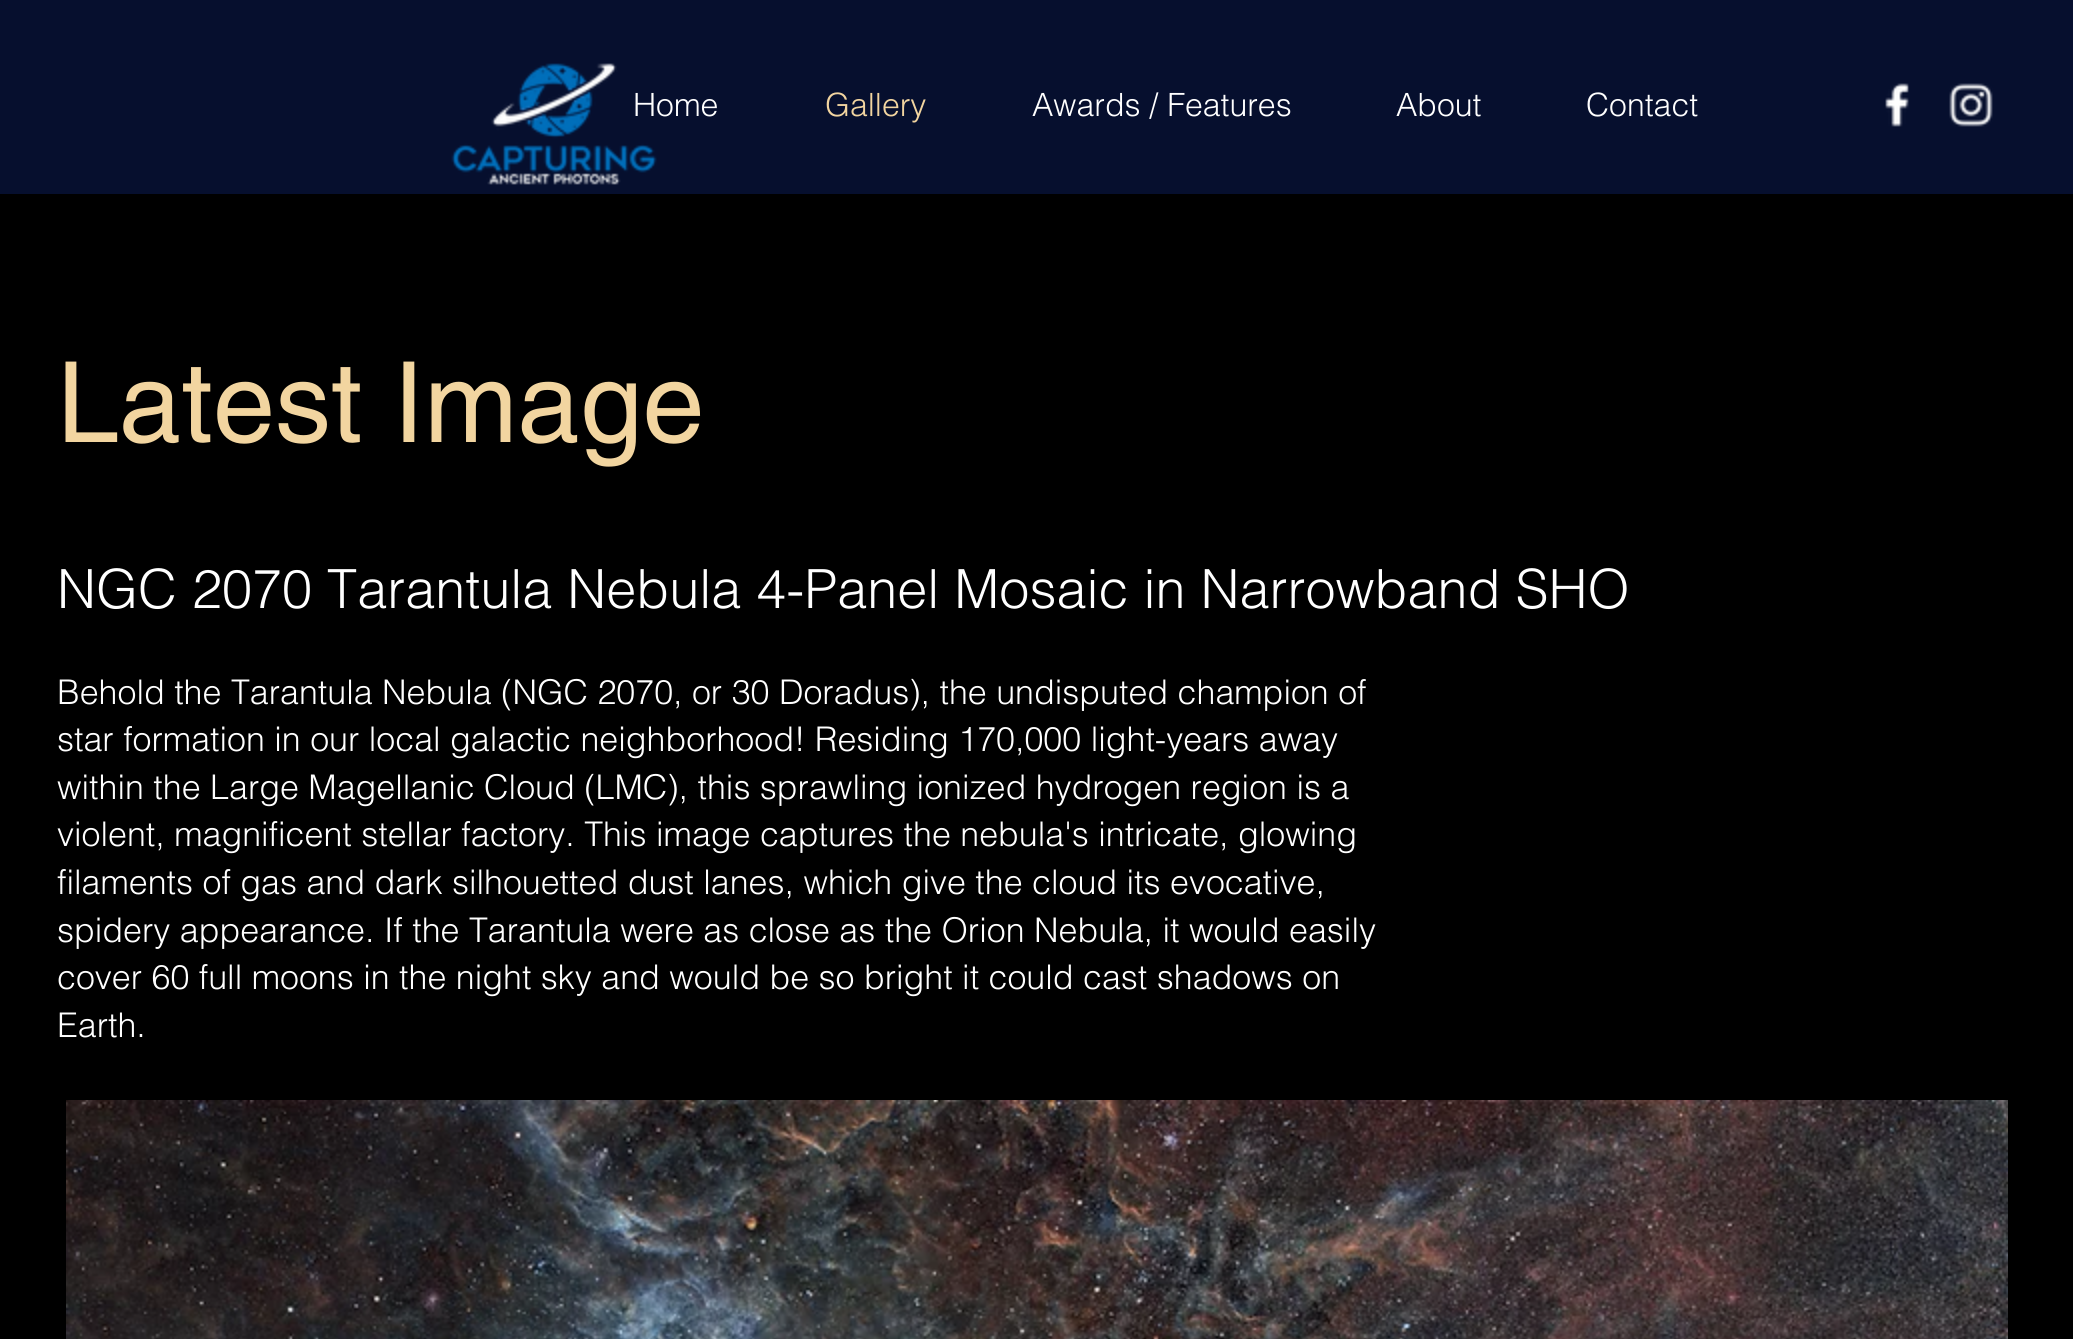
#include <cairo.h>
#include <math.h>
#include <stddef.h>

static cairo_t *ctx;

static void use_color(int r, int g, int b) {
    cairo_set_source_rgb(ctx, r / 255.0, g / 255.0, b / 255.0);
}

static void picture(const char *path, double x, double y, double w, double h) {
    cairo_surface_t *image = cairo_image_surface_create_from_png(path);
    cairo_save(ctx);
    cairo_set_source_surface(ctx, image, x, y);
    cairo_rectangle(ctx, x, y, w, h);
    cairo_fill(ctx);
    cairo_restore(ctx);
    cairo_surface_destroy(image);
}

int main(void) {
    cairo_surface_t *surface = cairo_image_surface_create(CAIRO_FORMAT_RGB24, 2073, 1339);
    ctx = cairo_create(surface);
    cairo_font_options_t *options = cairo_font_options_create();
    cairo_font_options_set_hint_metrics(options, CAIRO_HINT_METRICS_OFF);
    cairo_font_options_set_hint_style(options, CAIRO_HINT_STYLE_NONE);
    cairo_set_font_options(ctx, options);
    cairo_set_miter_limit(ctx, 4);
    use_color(0, 0, 0);
    cairo_paint(ctx);
    use_color(6, 15, 46);
    cairo_rectangle(ctx, 0, 0, 2073, 194);
    cairo_fill(ctx);
    picture("img1.png", 451, 63, 206, 122);
    cairo_select_font_face(ctx, "helvetica Light", CAIRO_FONT_SLANT_NORMAL, CAIRO_FONT_WEIGHT_NORMAL);
    cairo_set_font_size(ctx, 32);
    use_color(255, 255, 255);
    cairo_move_to(ctx, 633, 116);
    cairo_show_text(ctx, "Home");
    use_color(242, 213, 160);
    cairo_move_to(ctx, 825, 116);
    cairo_show_text(ctx, "Gallery");
    use_color(255, 255, 255);
    cairo_move_to(ctx, 1032, 116);
    cairo_show_text(ctx, "Awards / Features");
    cairo_move_to(ctx, 1396, 116);
    cairo_show_text(ctx, "About");
    cairo_move_to(ctx, 1586, 116);
    cairo_show_text(ctx, "Contact");
    picture("img2.png", 1885, 83, 24, 44);
    picture("img3.png", 1949, 83, 44, 44);
    cairo_select_font_face(ctx, "helvetica", CAIRO_FONT_SLANT_NORMAL, CAIRO_FONT_WEIGHT_NORMAL);
    cairo_set_font_size(ctx, 112);
    use_color(242, 213, 160);
    cairo_move_to(ctx, 57, 442);
    cairo_show_text(ctx, "Latest Image");
    cairo_select_font_face(ctx, "helvetica Light", CAIRO_FONT_SLANT_NORMAL, CAIRO_FONT_WEIGHT_NORMAL);
    cairo_set_font_size(ctx, 54);
    use_color(255, 255, 255);
    cairo_move_to(ctx, 57, 608);
    cairo_show_text(ctx, "NGC 2070 Tarantula Nebula 4-Panel Mosaic in Narrowband SHO");
    cairo_set_font_size(ctx, 34);
    cairo_move_to(ctx, 57, 704);
    cairo_show_text(ctx, "Behold the Tarantula Nebula (NGC 2070, or 30 Doradus), the undisputed champion of");
    cairo_move_to(ctx, 57, 751);
    cairo_show_text(ctx, "star formation in our local galactic neighborhood! Residing 170,000 light-years away");
    cairo_move_to(ctx, 57, 799);
    cairo_show_text(ctx, "within the Large Magellanic Cloud (LMC), this sprawling ionized hydrogen region is a");
    cairo_move_to(ctx, 57, 846);
    cairo_show_text(ctx, "violent, magnificent stellar factory. This image captures the nebula's intricate, glowing");
    cairo_move_to(ctx, 57, 894);
    cairo_show_text(ctx, "filaments of gas and dark silhouetted dust lanes, which give the cloud its evocative,");
    cairo_move_to(ctx, 57, 942);
    cairo_show_text(ctx, "spidery appearance. If the Tarantula were as close as the Orion Nebula, it would easily");
    cairo_move_to(ctx, 57, 989);
    cairo_show_text(ctx, "cover 60 full moons in the night sky and would be so bright it could cast shadows on");
    cairo_move_to(ctx, 57, 1037);
    cairo_show_text(ctx, "Earth.");
    picture("img4.png", 66, 1100, 1942, 239);
    cairo_surface_write_to_png(surface, "result.png");
    cairo_font_options_destroy(options);
    cairo_destroy(ctx);
    cairo_surface_destroy(surface);
    return 0;
}
